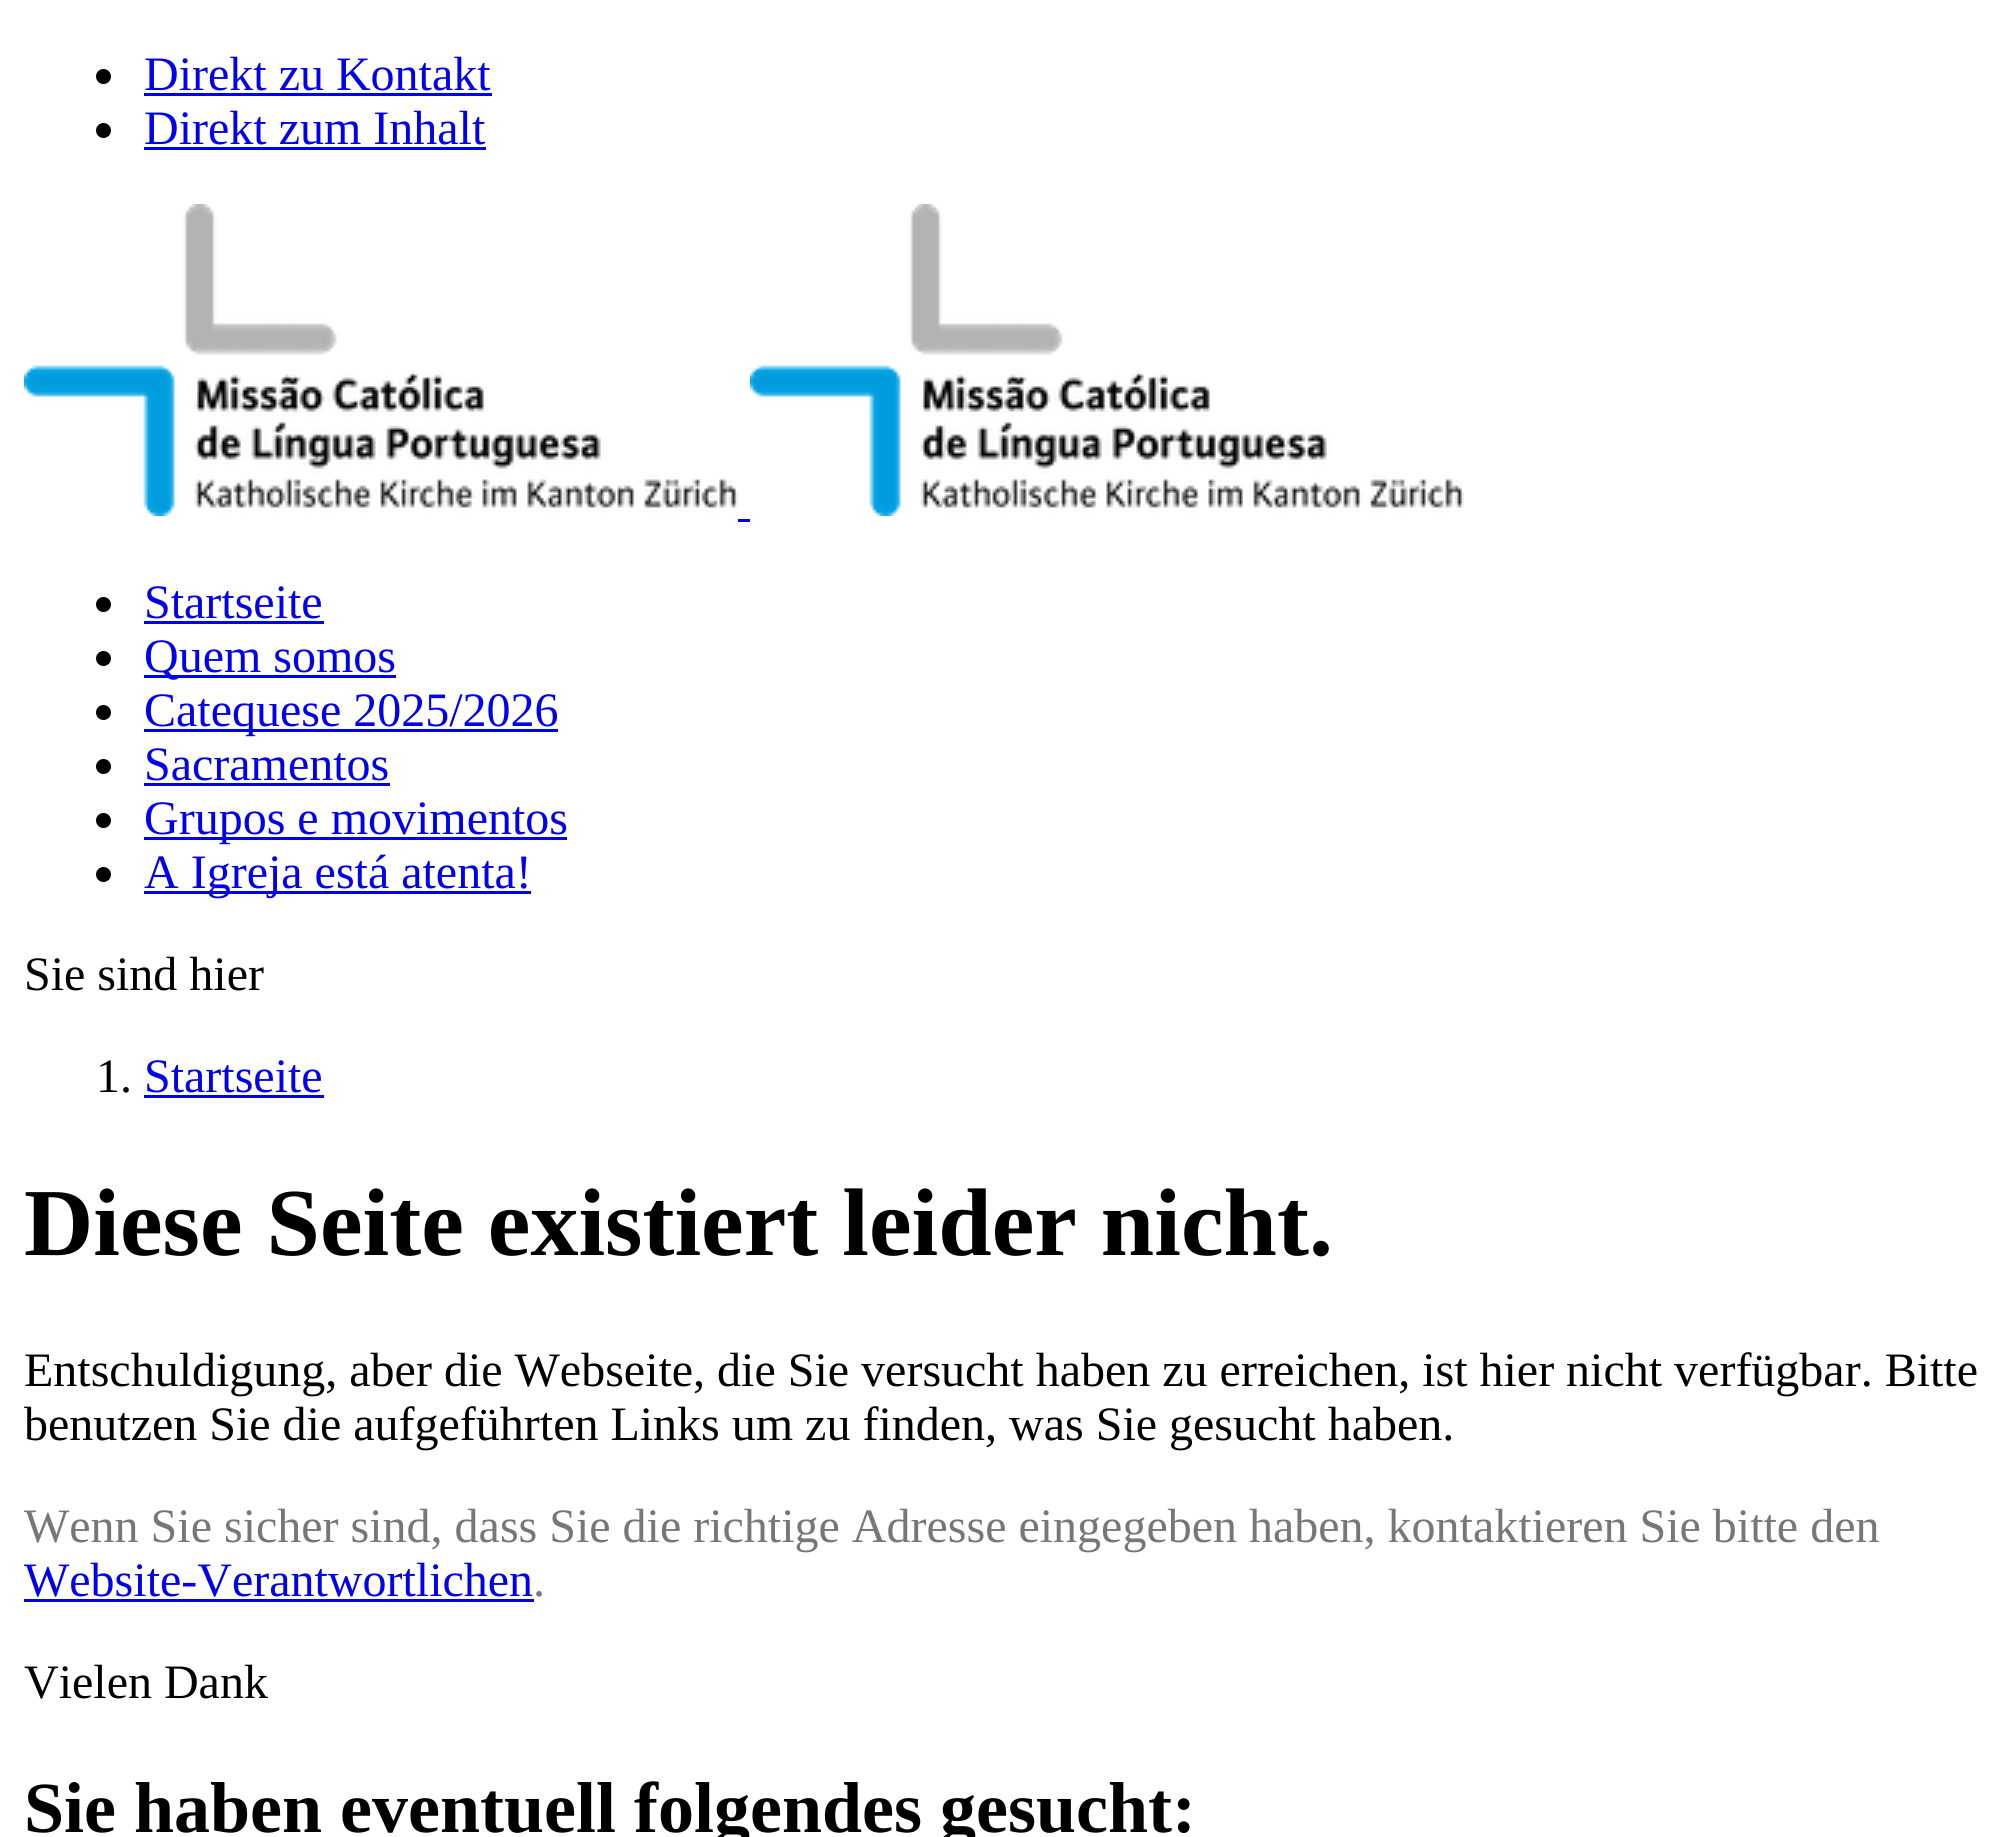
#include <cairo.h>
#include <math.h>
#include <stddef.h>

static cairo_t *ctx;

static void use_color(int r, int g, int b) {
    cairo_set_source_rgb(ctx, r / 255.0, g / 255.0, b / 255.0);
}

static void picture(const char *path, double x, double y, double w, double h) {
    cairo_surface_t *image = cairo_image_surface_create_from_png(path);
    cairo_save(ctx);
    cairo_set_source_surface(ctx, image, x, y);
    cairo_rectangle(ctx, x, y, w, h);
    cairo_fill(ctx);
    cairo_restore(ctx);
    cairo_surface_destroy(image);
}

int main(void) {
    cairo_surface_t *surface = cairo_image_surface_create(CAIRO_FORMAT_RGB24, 2015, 1837);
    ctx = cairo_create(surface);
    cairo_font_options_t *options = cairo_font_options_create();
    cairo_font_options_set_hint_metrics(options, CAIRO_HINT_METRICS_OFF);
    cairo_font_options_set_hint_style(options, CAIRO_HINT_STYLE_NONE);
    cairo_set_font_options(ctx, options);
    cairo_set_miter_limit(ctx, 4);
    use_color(255, 255, 255);
    cairo_paint(ctx);
    use_color(0, 0, 0);
    cairo_arc(ctx, 103.5, 76.5, 7.5, 0, 2 * M_PI);
    cairo_fill(ctx);
    cairo_select_font_face(ctx, "Liberation Serif", CAIRO_FONT_SLANT_NORMAL, CAIRO_FONT_WEIGHT_NORMAL);
    cairo_set_font_size(ctx, 48);
    use_color(0, 0, 238);
    cairo_move_to(ctx, 144, 90);
    cairo_show_text(ctx, "Direkt zu Kontakt");
    cairo_rectangle(ctx, 144, 93, 348, 3);
    cairo_fill(ctx);
    use_color(0, 0, 0);
    cairo_arc(ctx, 103.5, 130.5, 7.5, 0, 2 * M_PI);
    cairo_fill(ctx);
    use_color(0, 0, 238);
    cairo_move_to(ctx, 144, 144);
    cairo_show_text(ctx, "Direkt zum Inhalt");
    cairo_rectangle(ctx, 144, 147, 342, 3);
    cairo_fill(ctx);
    picture("img1.png", 24, 204, 714, 312);
    picture("img2.png", 750, 204, 714, 312);
    cairo_rectangle(ctx, 738, 519, 12, 3);
    cairo_fill(ctx);
    use_color(0, 0, 0);
    cairo_arc(ctx, 103.5, 604.5, 7.5, 0, 2 * M_PI);
    cairo_fill(ctx);
    use_color(0, 0, 238);
    cairo_move_to(ctx, 144, 618);
    cairo_show_text(ctx, "Startseite");
    cairo_rectangle(ctx, 144, 621, 180, 3);
    cairo_fill(ctx);
    use_color(0, 0, 0);
    cairo_arc(ctx, 103.5, 658.5, 7.5, 0, 2 * M_PI);
    cairo_fill(ctx);
    use_color(0, 0, 238);
    cairo_rectangle(ctx, 144, 675, 252, 3);
    cairo_fill(ctx);
    cairo_move_to(ctx, 144, 672);
    cairo_show_text(ctx, "Quem somos");
    use_color(0, 0, 0);
    cairo_new_path(ctx);
    cairo_arc(ctx, 103.5, 712.5, 7.5, 0, 2 * M_PI);
    cairo_fill(ctx);
    use_color(0, 0, 238);
    cairo_rectangle(ctx, 144, 729, 414, 3);
    cairo_fill(ctx);
    cairo_move_to(ctx, 144, 726);
    cairo_show_text(ctx, "Catequese 2025/2026");
    use_color(0, 0, 0);
    cairo_new_path(ctx);
    cairo_arc(ctx, 103.5, 766.5, 7.5, 0, 2 * M_PI);
    cairo_fill(ctx);
    use_color(0, 0, 238);
    cairo_move_to(ctx, 144, 780);
    cairo_show_text(ctx, "Sacramentos");
    cairo_rectangle(ctx, 144, 783, 246, 3);
    cairo_fill(ctx);
    use_color(0, 0, 0);
    cairo_arc(ctx, 103.5, 820.5, 7.5, 0, 2 * M_PI);
    cairo_fill(ctx);
    use_color(0, 0, 238);
    cairo_rectangle(ctx, 144, 837, 423, 3);
    cairo_fill(ctx);
    cairo_move_to(ctx, 144, 834);
    cairo_show_text(ctx, "Grupos e movimentos");
    use_color(0, 0, 0);
    cairo_new_path(ctx);
    cairo_arc(ctx, 103.5, 874.5, 7.5, 0, 2 * M_PI);
    cairo_fill(ctx);
    use_color(0, 0, 238);
    cairo_rectangle(ctx, 144, 891, 387, 3);
    cairo_fill(ctx);
    cairo_move_to(ctx, 144, 888);
    cairo_show_text(ctx, "A Igreja está atenta!");
    use_color(0, 0, 0);
    cairo_move_to(ctx, 24, 990);
    cairo_show_text(ctx, "Sie sind hier");
    cairo_move_to(ctx, 96, 1092);
    cairo_show_text(ctx, "1.");
    use_color(0, 0, 238);
    cairo_move_to(ctx, 144, 1092);
    cairo_show_text(ctx, "Startseite");
    cairo_rectangle(ctx, 144, 1095, 180, 3);
    cairo_fill(ctx);
    cairo_select_font_face(ctx, "Liberation Serif", CAIRO_FONT_SLANT_NORMAL, CAIRO_FONT_WEIGHT_BOLD);
    cairo_set_font_size(ctx, 96);
    use_color(0, 0, 0);
    cairo_move_to(ctx, 24, 1255);
    cairo_show_text(ctx, "Diese Seite existiert leider nicht.");
    cairo_select_font_face(ctx, "Liberation Serif", CAIRO_FONT_SLANT_NORMAL, CAIRO_FONT_WEIGHT_NORMAL);
    cairo_set_font_size(ctx, 48);
    cairo_move_to(ctx, 24, 1386);
    cairo_show_text(ctx, "Entschuldigung, aber die Webseite, die Sie versucht haben zu erreichen, ist hier nicht verfügbar. Bitte");
    cairo_move_to(ctx, 24, 1440);
    cairo_show_text(ctx, "benutzen Sie die aufgeführten Links um zu finden, was Sie gesucht haben.");
    use_color(119, 119, 119);
    cairo_move_to(ctx, 24, 1542);
    cairo_show_text(ctx, "Wenn Sie sicher sind, dass Sie die richtige Adresse eingegeben haben, kontaktieren Sie bitte den");
    use_color(0, 0, 238);
    cairo_move_to(ctx, 24, 1596);
    cairo_show_text(ctx, "Website-Verantwortlichen");
    cairo_rectangle(ctx, 24, 1599, 510, 3);
    cairo_fill(ctx);
    use_color(119, 119, 119);
    cairo_move_to(ctx, 533, 1596);
    cairo_show_text(ctx, ".");
    use_color(0, 0, 0);
    cairo_move_to(ctx, 24, 1698);
    cairo_show_text(ctx, "Vielen Dank");
    cairo_select_font_face(ctx, "Liberation Serif", CAIRO_FONT_SLANT_NORMAL, CAIRO_FONT_WEIGHT_BOLD);
    cairo_set_font_size(ctx, 72);
    cairo_move_to(ctx, 24, 1832);
    cairo_show_text(ctx, "Sie haben eventuell folgendes gesucht:");
    cairo_surface_write_to_png(surface, "result.png");
    cairo_font_options_destroy(options);
    cairo_destroy(ctx);
    cairo_surface_destroy(surface);
    return 0;
}
